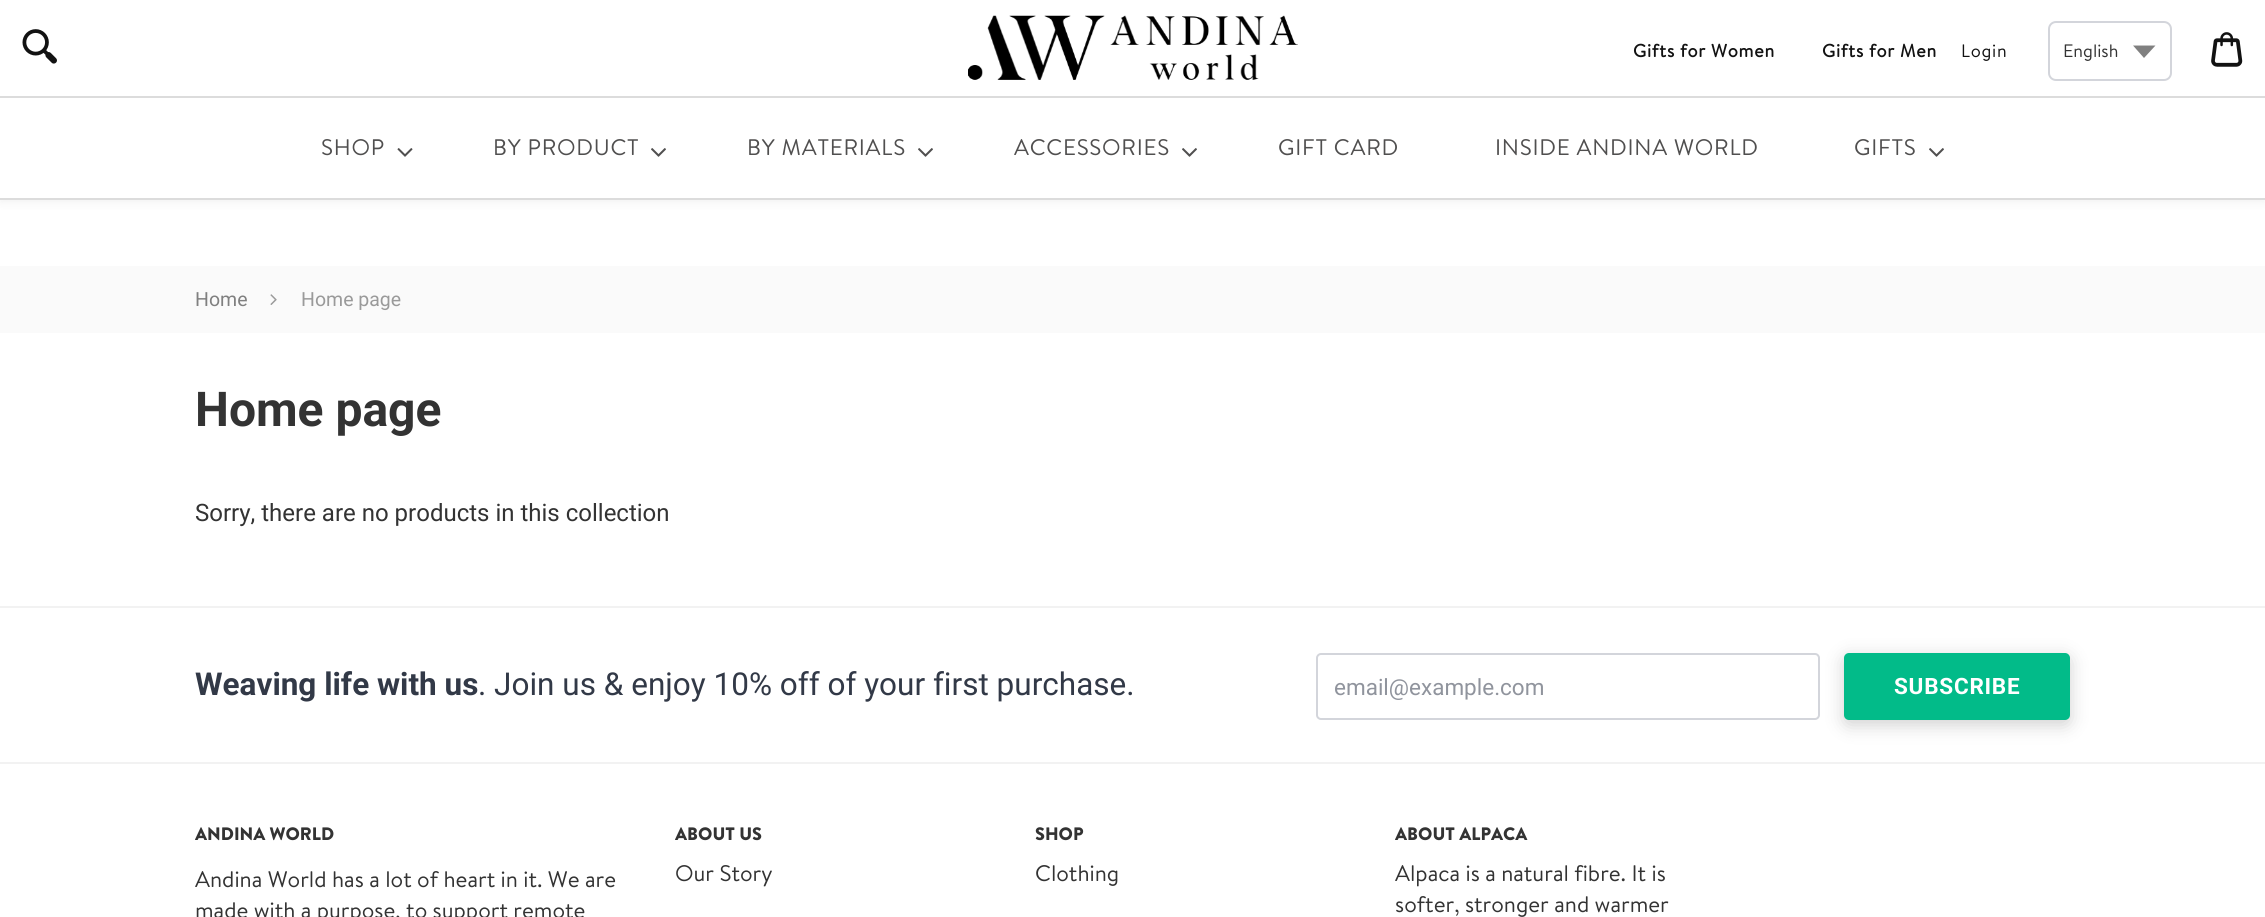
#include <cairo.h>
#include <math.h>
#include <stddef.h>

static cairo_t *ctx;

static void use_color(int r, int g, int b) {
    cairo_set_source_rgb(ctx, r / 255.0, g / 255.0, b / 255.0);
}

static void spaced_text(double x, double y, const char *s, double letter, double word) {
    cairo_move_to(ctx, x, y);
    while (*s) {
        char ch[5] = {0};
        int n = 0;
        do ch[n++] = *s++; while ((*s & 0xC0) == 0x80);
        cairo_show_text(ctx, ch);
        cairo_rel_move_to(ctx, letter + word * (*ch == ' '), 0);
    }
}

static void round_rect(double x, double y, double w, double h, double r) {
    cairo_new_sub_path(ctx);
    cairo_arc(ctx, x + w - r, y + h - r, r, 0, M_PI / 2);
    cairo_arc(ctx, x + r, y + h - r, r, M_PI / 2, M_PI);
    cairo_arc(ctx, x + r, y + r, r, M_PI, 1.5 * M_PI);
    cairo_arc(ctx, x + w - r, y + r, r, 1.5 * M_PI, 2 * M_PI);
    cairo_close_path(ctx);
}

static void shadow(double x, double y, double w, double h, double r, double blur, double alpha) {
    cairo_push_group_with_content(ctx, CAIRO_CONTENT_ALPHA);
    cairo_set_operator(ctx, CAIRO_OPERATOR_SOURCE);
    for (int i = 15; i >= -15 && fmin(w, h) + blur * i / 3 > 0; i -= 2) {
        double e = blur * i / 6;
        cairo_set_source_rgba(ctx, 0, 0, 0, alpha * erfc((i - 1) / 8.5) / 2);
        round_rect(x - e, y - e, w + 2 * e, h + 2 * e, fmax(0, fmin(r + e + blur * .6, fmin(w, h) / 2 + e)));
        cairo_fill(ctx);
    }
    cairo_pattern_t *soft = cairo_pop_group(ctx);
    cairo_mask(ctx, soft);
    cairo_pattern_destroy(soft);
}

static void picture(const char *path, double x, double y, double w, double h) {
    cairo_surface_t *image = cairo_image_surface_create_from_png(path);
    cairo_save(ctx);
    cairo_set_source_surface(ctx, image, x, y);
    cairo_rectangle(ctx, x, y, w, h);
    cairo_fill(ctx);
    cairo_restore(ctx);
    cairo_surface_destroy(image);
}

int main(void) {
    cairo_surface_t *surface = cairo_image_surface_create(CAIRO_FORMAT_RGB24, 2265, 917);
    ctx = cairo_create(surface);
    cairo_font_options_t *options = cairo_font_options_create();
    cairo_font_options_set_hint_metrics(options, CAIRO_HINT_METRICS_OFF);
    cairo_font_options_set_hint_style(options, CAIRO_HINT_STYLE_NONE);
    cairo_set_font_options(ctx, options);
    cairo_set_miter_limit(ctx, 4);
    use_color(255, 255, 255);
    cairo_paint(ctx);
    use_color(0, 0, 0);
    shadow(0, 3, 2265, 200, 0, 4.5, 0.05);
    use_color(255, 255, 255);
    cairo_rectangle(ctx, 0, 0, 2265, 198);
    cairo_fill(ctx);
    use_color(220, 220, 220);
    cairo_rectangle(ctx, 0, 96, 2265, 2);
    cairo_fill(ctx);
    picture("img1.png", 22, 29, 35, 35);
    picture("img2.png", 968, 15, 330, 65);
    cairo_select_font_face(ctx, "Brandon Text", CAIRO_FONT_SLANT_NORMAL, CAIRO_FONT_WEIGHT_BOLD);
    cairo_set_font_size(ctx, 18);
    use_color(18, 18, 18);
    spaced_text(1633, 57, "Gifts for Women", 0.75, 0);
    spaced_text(1822, 57, "Gifts for Men", 0.75, 0);
    cairo_select_font_face(ctx, "Brandon Text", CAIRO_FONT_SLANT_NORMAL, CAIRO_FONT_WEIGHT_NORMAL);
    spaced_text(1961, 57, "Login", 0.75, 0);
    use_color(128, 128, 128);
    cairo_new_path(ctx);
    cairo_move_to(ctx, 2133, 45.5);
    cairo_line_to(ctx, 2144, 58);
    cairo_line_to(ctx, 2155.5, 45.5);
    cairo_close_path(ctx);
    cairo_fill(ctx);
    round_rect(2049, 22, 122, 58, 7);
    use_color(211, 213, 219);
    cairo_stroke(ctx);
    use_color(51, 51, 51);
    cairo_move_to(ctx, 2063, 57);
    cairo_show_text(ctx, "English");
    picture("img3.png", 2211, 32, 32, 35);
    use_color(220, 220, 220);
    cairo_rectangle(ctx, 0, 198, 2265, 2);
    cairo_fill(ctx);
    cairo_set_font_size(ctx, 22.5);
    use_color(80, 79, 79);
    spaced_text(321, 155, "SHOP", 0.75, 0);
    picture("img4.png", 397, 148, 16, 9);
    spaced_text(493, 155, "BY PRODUCT", 0.75, 0);
    picture("img5.png", 651, 148, 15, 9);
    spaced_text(747, 155, "BY MATERIALS", 0.75, 0);
    picture("img5.png", 918, 148, 15, 9);
    spaced_text(1014, 155, "ACCESSORIES", 0.75, 0);
    picture("img5.png", 1182, 148, 15, 9);
    spaced_text(1278, 155, "GIFT CARD", 0.75, 0);
    spaced_text(1495, 155, "INSIDE ANDINA WORLD", 0.75, 0);
    spaced_text(1854, 155, "GIFTS", 0.75, 0);
    picture("img5.png", 1929, 148, 15, 9);
    use_color(250, 250, 250);
    cairo_rectangle(ctx, 0, 266, 2265, 67);
    cairo_fill(ctx);
    cairo_select_font_face(ctx, "Roboto", CAIRO_FONT_SLANT_NORMAL, CAIRO_FONT_WEIGHT_NORMAL);
    cairo_set_font_size(ctx, 19.5);
    use_color(128, 128, 128);
    cairo_move_to(ctx, 195, 306);
    cairo_show_text(ctx, "Home");
    picture("img6.png", 270, 294, 7, 11);
    use_color(154, 154, 154);
    cairo_move_to(ctx, 301, 306);
    cairo_show_text(ctx, "Home page");
    cairo_select_font_face(ctx, "Roboto", CAIRO_FONT_SLANT_NORMAL, CAIRO_FONT_WEIGHT_BOLD);
    cairo_set_font_size(ctx, 48);
    use_color(51, 51, 51);
    cairo_move_to(ctx, 195, 426);
    cairo_show_text(ctx, "Home page");
    cairo_select_font_face(ctx, "Roboto", CAIRO_FONT_SLANT_NORMAL, CAIRO_FONT_WEIGHT_NORMAL);
    cairo_set_font_size(ctx, 24);
    cairo_move_to(ctx, 195, 521);
    cairo_show_text(ctx, "Sorry, there are no products in this collection");
    use_color(242, 242, 242);
    cairo_rectangle(ctx, 0, 606, 2265, 2);
    cairo_fill(ctx);
    cairo_select_font_face(ctx, "Roboto", CAIRO_FONT_SLANT_NORMAL, CAIRO_FONT_WEIGHT_BOLD);
    cairo_set_font_size(ctx, 31.5);
    use_color(50, 57, 71);
    cairo_move_to(ctx, 195, 695);
    cairo_show_text(ctx, "Weaving life with us");
    cairo_select_font_face(ctx, "Roboto", CAIRO_FONT_SLANT_NORMAL, CAIRO_FONT_WEIGHT_NORMAL);
    cairo_move_to(ctx, 478, 695);
    cairo_show_text(ctx, ". Join us & enjoy 10% off of your first purchase.");
    round_rect(1317, 654, 502, 65, 4);
    use_color(211, 213, 219);
    cairo_stroke(ctx);
    cairo_set_font_size(ctx, 22.5);
    use_color(144, 148, 157);
    cairo_move_to(ctx, 1334, 695);
    cairo_show_text(ctx, "email@example.com");
    use_color(0, 0, 0);
    shadow(1844, 657, 226, 68, 5, 9, 0.18);
    use_color(2, 187, 137);
    round_rect(1844, 653, 226, 67, 5);
    cairo_fill(ctx);
    cairo_select_font_face(ctx, "Roboto", CAIRO_FONT_SLANT_NORMAL, CAIRO_FONT_WEIGHT_BOLD);
    use_color(255, 255, 255);
    spaced_text(1894, 694, "SUBSCRIBE", 0.75, 0);
    use_color(242, 242, 242);
    cairo_rectangle(ctx, 0, 762, 2265, 2);
    cairo_fill(ctx);
    cairo_select_font_face(ctx, "Brandon Text Black", CAIRO_FONT_SLANT_NORMAL, CAIRO_FONT_WEIGHT_NORMAL);
    cairo_set_font_size(ctx, 18);
    use_color(51, 51, 51);
    cairo_move_to(ctx, 195, 840);
    cairo_show_text(ctx, "ANDINA WORLD");
    cairo_select_font_face(ctx, "Brandon Text", CAIRO_FONT_SLANT_NORMAL, CAIRO_FONT_WEIGHT_NORMAL);
    cairo_set_font_size(ctx, 22.5);
    cairo_move_to(ctx, 195, 887);
    cairo_show_text(ctx, "Andina World has a lot of heart in it. We are");
    cairo_move_to(ctx, 195, 918);
    cairo_show_text(ctx, "made with a purpose, to support remote");
    cairo_select_font_face(ctx, "Brandon Text Black", CAIRO_FONT_SLANT_NORMAL, CAIRO_FONT_WEIGHT_NORMAL);
    cairo_set_font_size(ctx, 18);
    cairo_move_to(ctx, 675, 840);
    cairo_show_text(ctx, "ABOUT US");
    cairo_select_font_face(ctx, "Brandon Text", CAIRO_FONT_SLANT_NORMAL, CAIRO_FONT_WEIGHT_NORMAL);
    cairo_set_font_size(ctx, 22.5);
    cairo_move_to(ctx, 675, 881);
    cairo_show_text(ctx, "Our Story");
    cairo_select_font_face(ctx, "Brandon Text Black", CAIRO_FONT_SLANT_NORMAL, CAIRO_FONT_WEIGHT_NORMAL);
    cairo_set_font_size(ctx, 18);
    cairo_move_to(ctx, 1035, 840);
    cairo_show_text(ctx, "SHOP");
    cairo_select_font_face(ctx, "Brandon Text", CAIRO_FONT_SLANT_NORMAL, CAIRO_FONT_WEIGHT_NORMAL);
    cairo_set_font_size(ctx, 22.5);
    cairo_move_to(ctx, 1035, 881);
    cairo_show_text(ctx, "Clothing");
    cairo_select_font_face(ctx, "Brandon Text Black", CAIRO_FONT_SLANT_NORMAL, CAIRO_FONT_WEIGHT_NORMAL);
    cairo_set_font_size(ctx, 18);
    cairo_move_to(ctx, 1395, 840);
    cairo_show_text(ctx, "ABOUT ALPACA");
    cairo_select_font_face(ctx, "Brandon Text", CAIRO_FONT_SLANT_NORMAL, CAIRO_FONT_WEIGHT_NORMAL);
    cairo_set_font_size(ctx, 22.5);
    cairo_move_to(ctx, 1395, 881);
    cairo_show_text(ctx, "Alpaca is a natural fibre. It is");
    cairo_move_to(ctx, 1395, 912);
    cairo_show_text(ctx, "softer, stronger and warmer");
    cairo_surface_write_to_png(surface, "result.png");
    cairo_font_options_destroy(options);
    cairo_destroy(ctx);
    cairo_surface_destroy(surface);
    return 0;
}
